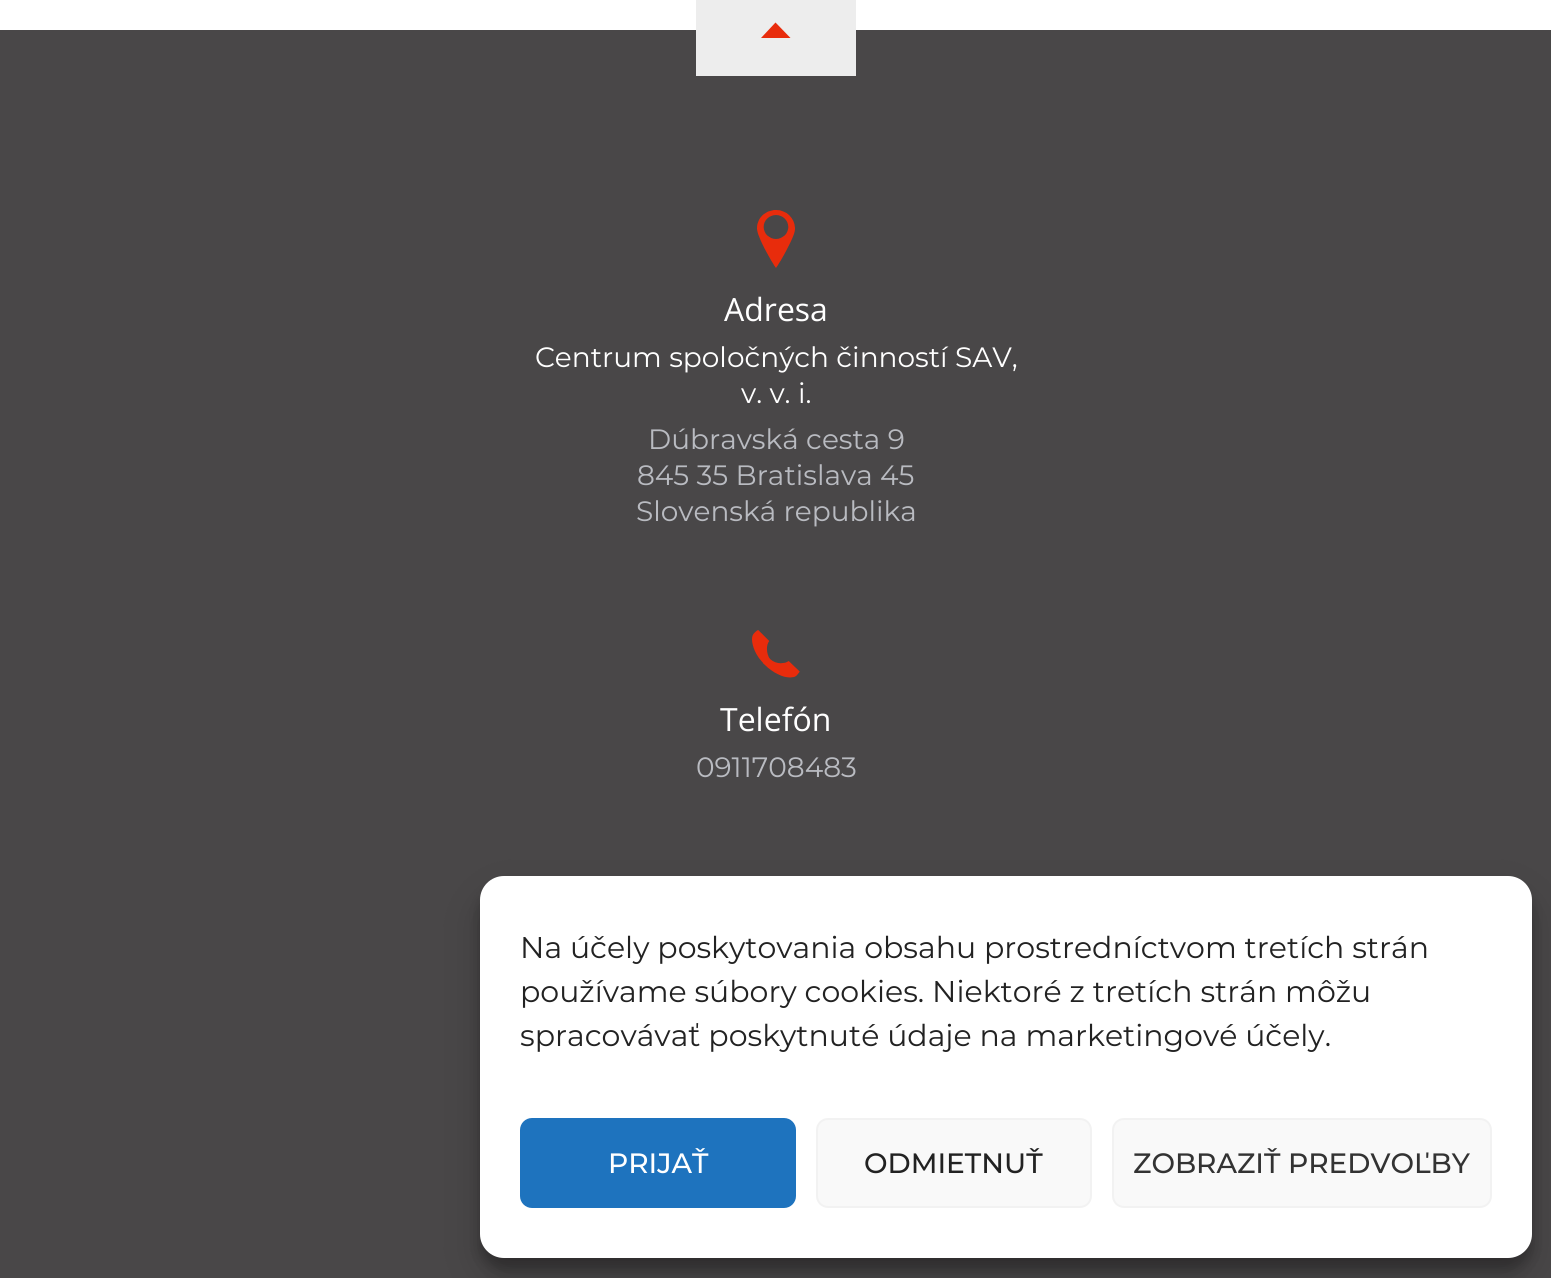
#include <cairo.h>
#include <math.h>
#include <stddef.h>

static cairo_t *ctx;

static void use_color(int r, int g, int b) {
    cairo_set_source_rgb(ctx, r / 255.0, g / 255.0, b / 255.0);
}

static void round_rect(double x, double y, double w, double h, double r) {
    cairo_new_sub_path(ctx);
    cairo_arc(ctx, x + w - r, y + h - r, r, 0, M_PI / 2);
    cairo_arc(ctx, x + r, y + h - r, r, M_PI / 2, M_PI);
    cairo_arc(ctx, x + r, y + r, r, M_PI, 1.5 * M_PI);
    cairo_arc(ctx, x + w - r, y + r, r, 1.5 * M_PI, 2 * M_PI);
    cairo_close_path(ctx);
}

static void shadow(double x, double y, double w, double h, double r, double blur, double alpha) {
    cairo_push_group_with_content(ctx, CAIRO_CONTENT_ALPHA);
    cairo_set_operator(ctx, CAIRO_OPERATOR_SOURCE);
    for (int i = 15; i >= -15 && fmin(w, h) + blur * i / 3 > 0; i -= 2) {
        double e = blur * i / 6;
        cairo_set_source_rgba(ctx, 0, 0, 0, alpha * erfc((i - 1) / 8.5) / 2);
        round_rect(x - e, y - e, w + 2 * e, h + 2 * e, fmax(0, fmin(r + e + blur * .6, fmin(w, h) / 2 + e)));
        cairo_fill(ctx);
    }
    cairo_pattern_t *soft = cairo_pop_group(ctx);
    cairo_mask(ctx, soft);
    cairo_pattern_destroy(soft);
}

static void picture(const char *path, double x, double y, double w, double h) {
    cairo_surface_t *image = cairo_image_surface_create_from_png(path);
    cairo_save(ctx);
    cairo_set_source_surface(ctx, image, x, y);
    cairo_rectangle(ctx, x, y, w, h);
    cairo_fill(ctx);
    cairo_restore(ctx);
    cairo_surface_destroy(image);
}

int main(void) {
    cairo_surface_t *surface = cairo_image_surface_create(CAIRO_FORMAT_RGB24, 1551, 1278);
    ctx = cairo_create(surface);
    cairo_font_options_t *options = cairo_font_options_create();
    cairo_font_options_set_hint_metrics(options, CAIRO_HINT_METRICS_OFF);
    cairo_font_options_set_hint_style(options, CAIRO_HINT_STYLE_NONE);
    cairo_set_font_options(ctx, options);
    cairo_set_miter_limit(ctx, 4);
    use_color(255, 255, 255);
    cairo_paint(ctx);
    use_color(73, 71, 72);
    cairo_rectangle(ctx, 0, 30, 1551, 1248);
    cairo_fill(ctx);
    use_color(237, 237, 237);
    cairo_rectangle(ctx, 696, 0, 160, 76);
    cairo_fill(ctx);
    use_color(232, 44, 12);
    cairo_new_path(ctx);
    cairo_move_to(ctx, 775.5, 22.5);
    cairo_line_to(ctx, 761, 38);
    cairo_line_to(ctx, 790.5, 38);
    cairo_close_path(ctx);
    cairo_fill(ctx);
    picture("img1.png", 757, 210, 38, 58);
    cairo_select_font_face(ctx, "Open Sans", CAIRO_FONT_SLANT_NORMAL, CAIRO_FONT_WEIGHT_NORMAL);
    cairo_set_font_size(ctx, 32);
    use_color(255, 255, 255);
    cairo_move_to(ctx, 724, 321);
    cairo_show_text(ctx, "Adresa");
    cairo_select_font_face(ctx, "Montserrat", CAIRO_FONT_SLANT_NORMAL, CAIRO_FONT_WEIGHT_NORMAL);
    cairo_set_font_size(ctx, 28);
    cairo_move_to(ctx, 535, 367);
    cairo_show_text(ctx, "Centrum spoločných činností SAV,");
    cairo_move_to(ctx, 741, 403);
    cairo_show_text(ctx, "v. v. i.");
    use_color(185, 187, 193);
    cairo_move_to(ctx, 648, 449);
    cairo_show_text(ctx, "Dúbravská cesta 9");
    cairo_move_to(ctx, 637, 485);
    cairo_show_text(ctx, "845 35 Bratislava 45");
    cairo_move_to(ctx, 636, 521);
    cairo_show_text(ctx, "Slovenská republika");
    picture("img2.png", 752, 630, 48, 48);
    cairo_select_font_face(ctx, "Open Sans", CAIRO_FONT_SLANT_NORMAL, CAIRO_FONT_WEIGHT_NORMAL);
    cairo_set_font_size(ctx, 32);
    use_color(255, 255, 255);
    cairo_move_to(ctx, 720, 731);
    cairo_show_text(ctx, "Telefón");
    cairo_select_font_face(ctx, "Montserrat", CAIRO_FONT_SLANT_NORMAL, CAIRO_FONT_WEIGHT_NORMAL);
    cairo_set_font_size(ctx, 28);
    use_color(185, 187, 193);
    cairo_move_to(ctx, 696, 777);
    cairo_show_text(ctx, "0911708483");
    use_color(0, 0, 0);
    shadow(480, 888, 1052, 382, 24, 6, 0.23);
    shadow(480, 896, 1052, 382, 24, 20, 0.19);
    use_color(255, 255, 255);
    round_rect(480, 876, 1052, 382, 24);
    cairo_fill(ctx);
    cairo_set_font_size(ctx, 30);
    use_color(34, 34, 34);
    cairo_move_to(ctx, 520, 958);
    cairo_show_text(ctx, "Na účely poskytovania obsahu prostredníctvom tretích strán");
    cairo_move_to(ctx, 520, 1002);
    cairo_show_text(ctx, "používame súbory cookies. Niektoré z tretích strán môžu");
    cairo_move_to(ctx, 520, 1046);
    cairo_show_text(ctx, "spracovávať poskytnuté údaje na marketingové účely.");
    use_color(30, 115, 190);
    round_rect(521, 1119, 274, 88, 11);
    cairo_fill_preserve(ctx);
    cairo_stroke(ctx);
    cairo_select_font_face(ctx, "Montserrat Medium", CAIRO_FONT_SLANT_NORMAL, CAIRO_FONT_WEIGHT_NORMAL);
    cairo_set_font_size(ctx, 28);
    use_color(255, 255, 255);
    cairo_move_to(ctx, 608, 1173);
    cairo_show_text(ctx, "PRIJAŤ");
    use_color(249, 249, 249);
    round_rect(817, 1119, 274, 88, 11);
    cairo_fill_preserve(ctx);
    use_color(242, 242, 242);
    cairo_stroke(ctx);
    use_color(34, 34, 34);
    cairo_move_to(ctx, 864, 1173);
    cairo_show_text(ctx, "ODMIETNUŤ");
    use_color(249, 249, 249);
    round_rect(1113, 1119, 378, 88, 11);
    cairo_fill_preserve(ctx);
    use_color(242, 242, 242);
    cairo_stroke(ctx);
    use_color(51, 51, 51);
    cairo_move_to(ctx, 1133, 1173);
    cairo_show_text(ctx, "ZOBRAZIŤ PREDVOĽBY");
    cairo_surface_write_to_png(surface, "result.png");
    cairo_font_options_destroy(options);
    cairo_destroy(ctx);
    cairo_surface_destroy(surface);
    return 0;
}
